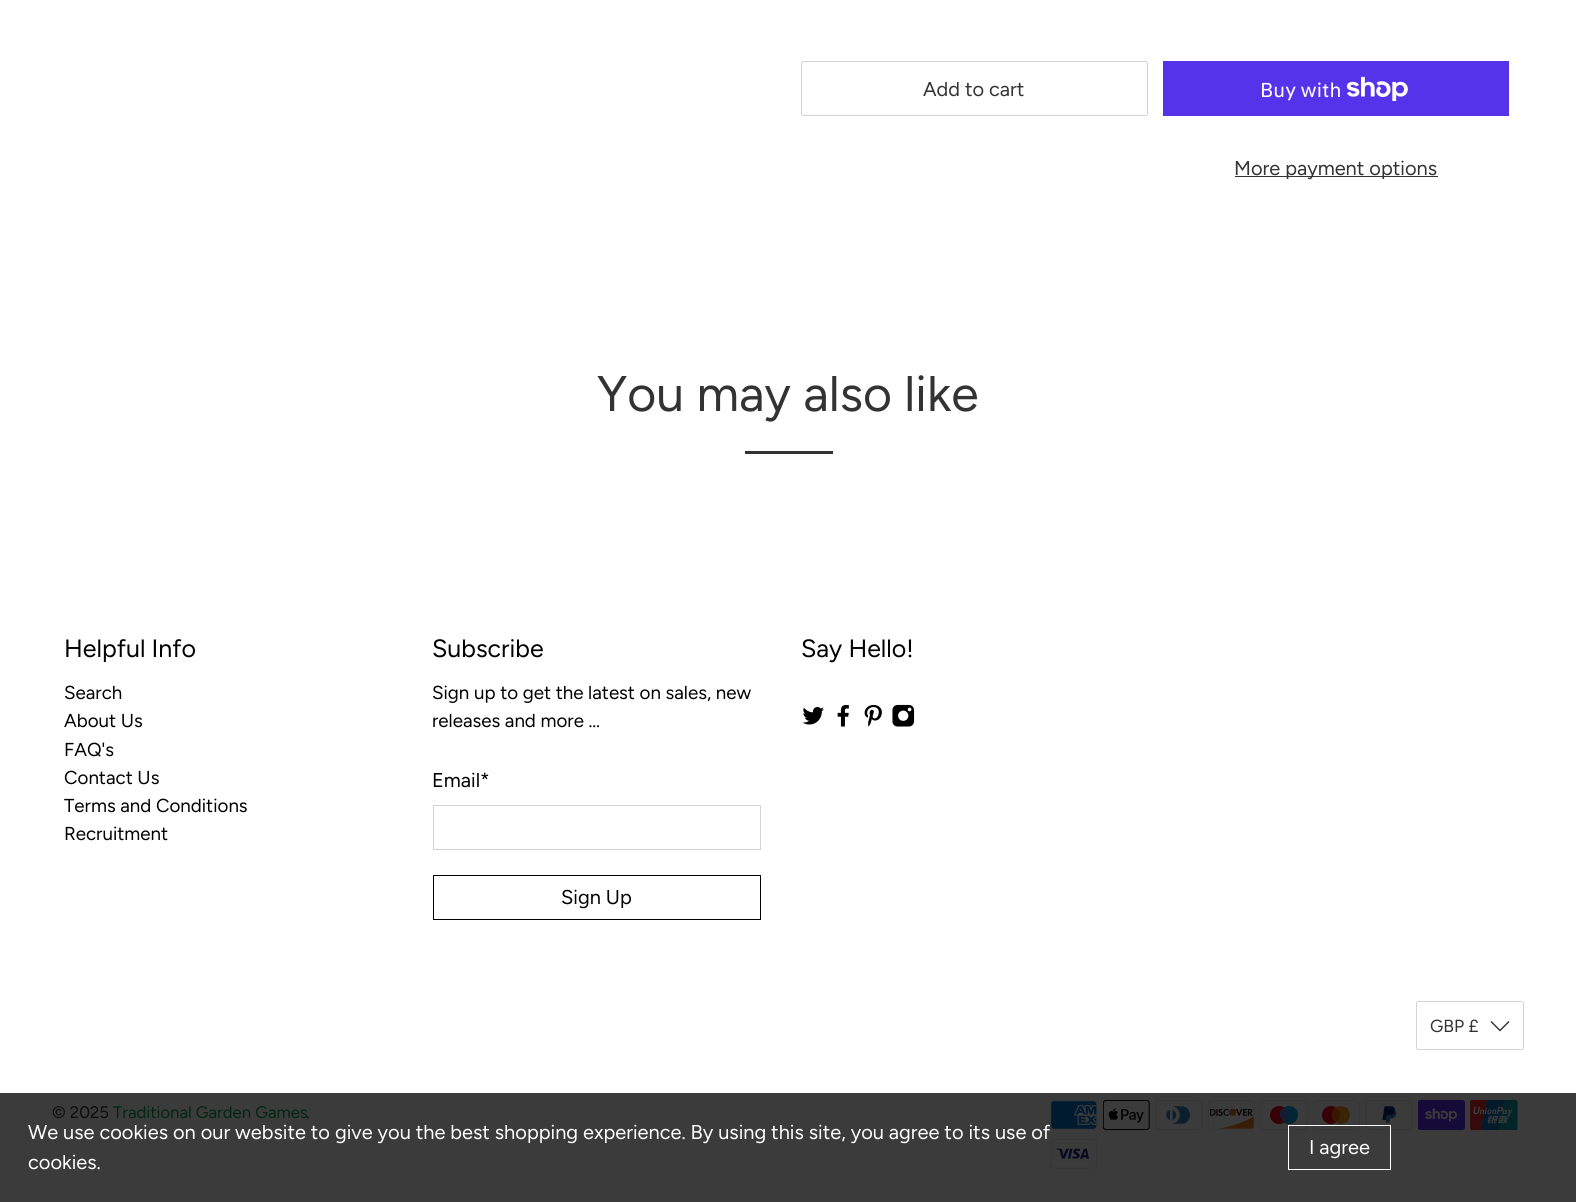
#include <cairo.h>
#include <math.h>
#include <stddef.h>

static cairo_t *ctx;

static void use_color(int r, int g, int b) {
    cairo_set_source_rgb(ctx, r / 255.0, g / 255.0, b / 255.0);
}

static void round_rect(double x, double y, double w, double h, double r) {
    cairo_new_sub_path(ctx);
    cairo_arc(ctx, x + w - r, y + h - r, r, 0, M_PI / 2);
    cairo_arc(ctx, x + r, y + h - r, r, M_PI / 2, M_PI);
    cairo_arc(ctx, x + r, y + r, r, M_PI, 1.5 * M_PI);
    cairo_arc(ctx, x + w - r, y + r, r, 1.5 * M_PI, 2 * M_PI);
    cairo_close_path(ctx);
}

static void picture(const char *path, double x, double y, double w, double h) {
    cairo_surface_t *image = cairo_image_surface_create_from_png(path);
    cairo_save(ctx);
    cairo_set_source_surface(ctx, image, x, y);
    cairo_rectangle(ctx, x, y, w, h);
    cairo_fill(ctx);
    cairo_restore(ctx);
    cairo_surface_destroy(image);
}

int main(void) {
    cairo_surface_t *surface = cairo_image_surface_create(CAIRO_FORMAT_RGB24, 1576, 1202);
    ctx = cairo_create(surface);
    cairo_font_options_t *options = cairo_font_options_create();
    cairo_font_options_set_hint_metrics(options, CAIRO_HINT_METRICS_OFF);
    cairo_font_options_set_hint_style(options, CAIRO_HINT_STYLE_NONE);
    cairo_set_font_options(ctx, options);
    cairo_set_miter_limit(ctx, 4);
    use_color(255, 255, 255);
    cairo_paint(ctx);
    use_color(59, 59, 59);
    cairo_rectangle(ctx, 0, 1093, 1576, 109);
    cairo_fill(ctx);
    round_rect(801.5, 61.5, 346, 54, 2);
    use_color(211, 211, 211);
    cairo_set_line_width(ctx, 1);
    cairo_stroke(ctx);
    cairo_select_font_face(ctx, "Figtree", CAIRO_FONT_SLANT_NORMAL, CAIRO_FONT_WEIGHT_NORMAL);
    cairo_set_font_size(ctx, 20);
    use_color(51, 51, 51);
    cairo_move_to(ctx, 923, 96);
    cairo_show_text(ctx, "Add to cart");
    use_color(84, 51, 235);
    cairo_rectangle(ctx, 1163, 61, 346, 55);
    cairo_fill(ctx);
    cairo_select_font_face(ctx, "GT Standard", CAIRO_FONT_SLANT_NORMAL, CAIRO_FONT_WEIGHT_NORMAL);
    use_color(255, 255, 255);
    cairo_move_to(ctx, 1260, 97);
    cairo_show_text(ctx, "Buy with");
    picture("img1.png", 1346, 76, 62, 25);
    use_color(51, 51, 51);
    cairo_rectangle(ctx, 1235, 176, 203, 1);
    cairo_fill(ctx);
    cairo_select_font_face(ctx, "Figtree", CAIRO_FONT_SLANT_NORMAL, CAIRO_FONT_WEIGHT_NORMAL);
    cairo_move_to(ctx, 1234, 175);
    cairo_show_text(ctx, "More payment options");
    cairo_set_font_size(ctx, 50);
    cairo_move_to(ctx, 597, 411);
    cairo_show_text(ctx, "You may also like");
    cairo_rectangle(ctx, 745, 451, 88, 3);
    cairo_fill(ctx);
    cairo_set_font_size(ctx, 25);
    use_color(0, 0, 0);
    cairo_move_to(ctx, 64, 657);
    cairo_show_text(ctx, "Helpful Info");
    cairo_set_font_size(ctx, 18.75);
    cairo_move_to(ctx, 64, 699);
    cairo_show_text(ctx, "Search");
    cairo_move_to(ctx, 64, 727);
    cairo_show_text(ctx, "About Us");
    cairo_move_to(ctx, 64, 756);
    cairo_show_text(ctx, "FAQ's");
    cairo_move_to(ctx, 64, 784);
    cairo_show_text(ctx, "Contact Us");
    cairo_move_to(ctx, 64, 812);
    cairo_show_text(ctx, "Terms and Conditions");
    cairo_move_to(ctx, 64, 840);
    cairo_show_text(ctx, "Recruitment");
    cairo_set_font_size(ctx, 25);
    cairo_move_to(ctx, 432, 657);
    cairo_show_text(ctx, "Subscribe");
    cairo_set_font_size(ctx, 18.75);
    cairo_move_to(ctx, 432, 699);
    cairo_show_text(ctx, "Sign up to get the latest on sales, new");
    cairo_move_to(ctx, 432, 727);
    cairo_show_text(ctx, "releases and more …");
    cairo_set_font_size(ctx, 20);
    cairo_move_to(ctx, 432, 787);
    cairo_show_text(ctx, "Email*");
    cairo_rectangle(ctx, 433.5, 805.5, 327, 44);
    use_color(211, 211, 211);
    cairo_stroke(ctx);
    cairo_rectangle(ctx, 433.5, 875.5, 327, 44);
    use_color(0, 0, 0);
    cairo_stroke(ctx);
    cairo_move_to(ctx, 561, 904);
    cairo_show_text(ctx, "Sign Up");
    cairo_set_font_size(ctx, 25);
    cairo_move_to(ctx, 801, 657);
    cairo_show_text(ctx, "Say Hello!");
    picture("img2.png", 802, 707, 22, 18);
    picture("img3.png", 837, 704, 12, 23);
    picture("img4.png", 864, 704, 18, 23);
    picture("img5.png", 892, 704, 23, 23);
    round_rect(1416.5, 1001.5, 107, 48, 2);
    use_color(211, 211, 211);
    cairo_stroke(ctx);
    cairo_set_font_size(ctx, 17.5);
    use_color(51, 51, 51);
    cairo_move_to(ctx, 1430, 1032);
    cairo_show_text(ctx, "GBP £");
    cairo_new_path(ctx);
    cairo_move_to(ctx, 1500, 1031.5);
    cairo_line_to(ctx, 1490.5, 1022);
    cairo_line_to(ctx, 1491.5, 1021);
    cairo_line_to(ctx, 1500, 1029.5);
    cairo_line_to(ctx, 1508.5, 1021);
    cairo_line_to(ctx, 1509.5, 1022);
    cairo_close_path(ctx);
    cairo_fill(ctx);
    cairo_set_font_size(ctx, 16.75);
    use_color(12, 12, 12);
    cairo_move_to(ctx, 52, 1118);
    cairo_show_text(ctx, "© 2025");
    use_color(1, 38, 19);
    cairo_move_to(ctx, 113, 1118);
    cairo_show_text(ctx, "Traditional Garden Games");
    use_color(12, 12, 12);
    cairo_move_to(ctx, 306, 1118);
    cairo_show_text(ctx, ".");
    picture("img6.png", 1050, 1100, 48, 30);
    picture("img7.png", 1103, 1100, 47, 30);
    picture("img8.png", 1155, 1100, 48, 30);
    picture("img9.png", 1208, 1100, 47, 30);
    picture("img10.png", 1260, 1100, 48, 30);
    picture("img11.png", 1313, 1100, 47, 30);
    picture("img12.png", 1365, 1100, 48, 30);
    picture("img13.png", 1418, 1100, 47, 30);
    picture("img14.png", 1470, 1100, 48, 30);
    picture("img15.png", 1050, 1139, 48, 30);
    cairo_set_font_size(ctx, 20);
    use_color(255, 255, 255);
    cairo_move_to(ctx, 28, 1139);
    cairo_show_text(ctx, "We use cookies on our website to give you the best shopping experience. By using this site, you agree to its use of");
    cairo_move_to(ctx, 28, 1169);
    cairo_show_text(ctx, "cookies.");
    cairo_rectangle(ctx, 1288.5, 1125.5, 102, 44);
    cairo_stroke(ctx);
    cairo_move_to(ctx, 1309, 1154);
    cairo_show_text(ctx, "I agree");
    cairo_surface_write_to_png(surface, "result.png");
    cairo_font_options_destroy(options);
    cairo_destroy(ctx);
    cairo_surface_destroy(surface);
    return 0;
}
